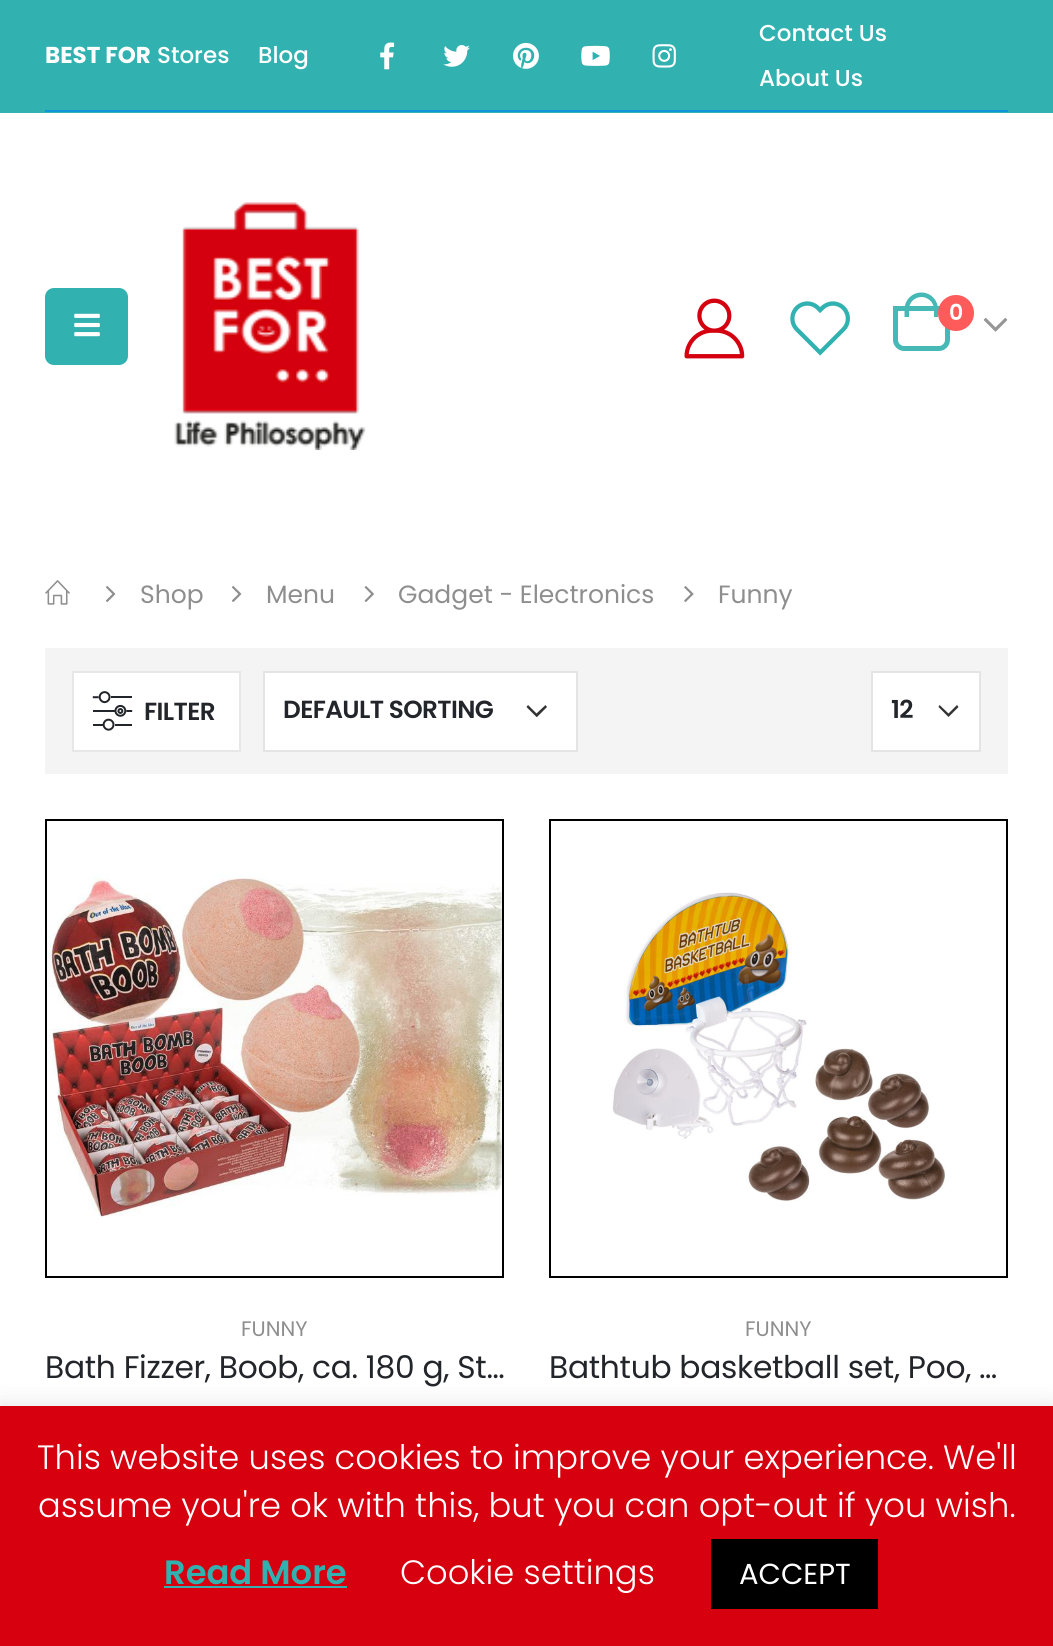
#include <cairo.h>
#include <math.h>
#include <stddef.h>

static cairo_t *ctx;

static void use_color(int r, int g, int b) {
    cairo_set_source_rgb(ctx, r / 255.0, g / 255.0, b / 255.0);
}

static void spaced_text(double x, double y, const char *s, double letter, double word) {
    cairo_move_to(ctx, x, y);
    while (*s) {
        char ch[5] = {0};
        int n = 0;
        do ch[n++] = *s++; while ((*s & 0xC0) == 0x80);
        cairo_show_text(ctx, ch);
        cairo_rel_move_to(ctx, letter + word * (*ch == ' '), 0);
    }
}

static void round_rect(double x, double y, double w, double h, double r) {
    cairo_new_sub_path(ctx);
    cairo_arc(ctx, x + w - r, y + h - r, r, 0, M_PI / 2);
    cairo_arc(ctx, x + r, y + h - r, r, M_PI / 2, M_PI);
    cairo_arc(ctx, x + r, y + r, r, M_PI, 1.5 * M_PI);
    cairo_arc(ctx, x + w - r, y + r, r, 1.5 * M_PI, 2 * M_PI);
    cairo_close_path(ctx);
}

static void shadow(double x, double y, double w, double h, double r, double blur, double alpha) {
    cairo_push_group_with_content(ctx, CAIRO_CONTENT_ALPHA);
    cairo_set_operator(ctx, CAIRO_OPERATOR_SOURCE);
    for (int i = 15; i >= -15 && fmin(w, h) + blur * i / 3 > 0; i -= 2) {
        double e = blur * i / 6;
        cairo_set_source_rgba(ctx, 0, 0, 0, alpha * erfc((i - 1) / 8.5) / 2);
        round_rect(x - e, y - e, w + 2 * e, h + 2 * e, fmax(0, fmin(r + e + blur * .6, fmin(w, h) / 2 + e)));
        cairo_fill(ctx);
    }
    cairo_pattern_t *soft = cairo_pop_group(ctx);
    cairo_mask(ctx, soft);
    cairo_pattern_destroy(soft);
}

static void picture(const char *path, double x, double y, double w, double h) {
    cairo_surface_t *image = cairo_image_surface_create_from_png(path);
    cairo_save(ctx);
    cairo_set_source_surface(ctx, image, x, y);
    cairo_rectangle(ctx, x, y, w, h);
    cairo_fill(ctx);
    cairo_restore(ctx);
    cairo_surface_destroy(image);
}

int main(void) {
    cairo_surface_t *surface = cairo_image_surface_create(CAIRO_FORMAT_RGB24, 1053, 1646);
    ctx = cairo_create(surface);
    cairo_font_options_t *options = cairo_font_options_create();
    cairo_font_options_set_hint_metrics(options, CAIRO_HINT_METRICS_OFF);
    cairo_font_options_set_hint_style(options, CAIRO_HINT_STYLE_NONE);
    cairo_set_font_options(ctx, options);
    cairo_set_miter_limit(ctx, 4);
    use_color(255, 255, 255);
    cairo_paint(ctx);
    use_color(49, 177, 175);
    cairo_rectangle(ctx, 0, 0, 1053, 113);
    cairo_fill(ctx);
    cairo_select_font_face(ctx, "Poppins", CAIRO_FONT_SLANT_NORMAL, CAIRO_FONT_WEIGHT_BOLD);
    cairo_set_font_size(ctx, 23);
    use_color(255, 255, 255);
    cairo_move_to(ctx, 45, 63);
    cairo_show_text(ctx, "BEST FOR");
    cairo_select_font_face(ctx, "Poppins Medium", CAIRO_FONT_SLANT_NORMAL, CAIRO_FONT_WEIGHT_NORMAL);
    cairo_move_to(ctx, 157, 63);
    cairo_show_text(ctx, "Stores");
    cairo_move_to(ctx, 258, 63);
    cairo_show_text(ctx, "Blog");
    picture("img1.png", 380, 42, 15, 28);
    picture("img2.png", 443, 45, 27, 22);
    picture("img3.png", 513, 42, 26, 27);
    picture("img4.png", 581, 45, 29, 21);
    picture("img5.png", 652, 44, 24, 24);
    cairo_move_to(ctx, 759, 41);
    cairo_show_text(ctx, "Contact Us");
    cairo_move_to(ctx, 759, 86);
    cairo_show_text(ctx, "About Us");
    use_color(14, 149, 216);
    cairo_rectangle(ctx, 45, 110, 963, 2);
    cairo_fill(ctx);
    use_color(49, 177, 175);
    round_rect(45, 288, 83, 77, 9);
    cairo_fill(ctx);
    picture("img6.png", 74, 313, 26, 24);
    picture("img7.png", 174, 202, 192, 248);
    picture("img8.png", 684, 298, 61, 61);
    picture("img9.png", 790, 301, 60, 55);
    cairo_new_path(ctx);
    cairo_move_to(ctx, 895.5, 308.5);
    cairo_line_to(ctx, 947.5, 308.5);
    cairo_line_to(ctx, 947.5, 340);
    cairo_curve_to(ctx, 947.5, 344.5, 943.5, 348.5, 939, 348.5);
    cairo_line_to(ctx, 904, 348.5);
    cairo_curve_to(ctx, 899.5, 348.5, 895.5, 344.5, 895.5, 340);
    cairo_close_path(ctx);
    use_color(70, 185, 183);
    cairo_set_line_width(ctx, 5);
    cairo_stroke(ctx);
    cairo_set_fill_rule(ctx, CAIRO_FILL_RULE_EVEN_ODD);
    cairo_new_path(ctx);
    cairo_move_to(ctx, 921.5, 292.5);
    cairo_curve_to(ctx, 930.5, 292.5, 938, 300, 938, 309.5);
    cairo_line_to(ctx, 938, 317);
    cairo_line_to(ctx, 904.5, 317);
    cairo_line_to(ctx, 904.5, 309.5);
    cairo_curve_to(ctx, 904.5, 300, 912, 292.5, 921.5, 292.5);
    cairo_close_path(ctx);
    cairo_move_to(ctx, 921.5, 297);
    cairo_curve_to(ctx, 928, 297, 934, 302.5, 934, 309.5);
    cairo_line_to(ctx, 934, 317);
    cairo_line_to(ctx, 909, 317);
    cairo_line_to(ctx, 909, 309.5);
    cairo_curve_to(ctx, 909, 302.5, 914.5, 297, 921.5, 297);
    cairo_close_path(ctx);
    cairo_fill(ctx);
    use_color(255, 91, 91);
    cairo_arc(ctx, 956, 313, 18, 0, 2 * M_PI);
    cairo_fill(ctx);
    cairo_select_font_face(ctx, "Poppins SemiBold", CAIRO_FONT_SLANT_NORMAL, CAIRO_FONT_WEIGHT_NORMAL);
    cairo_set_font_size(ctx, 22);
    use_color(255, 255, 255);
    cairo_move_to(ctx, 949, 320);
    cairo_show_text(ctx, "0");
    picture("img10.png", 983, 318, 25, 14);
    picture("img11.png", 45, 580, 25, 25);
    picture("img12.png", 106, 586, 10, 16);
    cairo_select_font_face(ctx, "Poppins", CAIRO_FONT_SLANT_NORMAL, CAIRO_FONT_WEIGHT_NORMAL);
    cairo_set_font_size(ctx, 25);
    use_color(142, 142, 142);
    cairo_move_to(ctx, 140, 603);
    cairo_show_text(ctx, "Shop");
    picture("img12.png", 232, 586, 10, 16);
    cairo_move_to(ctx, 266, 603);
    cairo_show_text(ctx, "Menu");
    picture("img13.png", 364, 586, 10, 16);
    cairo_move_to(ctx, 398, 603);
    cairo_show_text(ctx, "Gadget - Electronics");
    picture("img14.png", 684, 586, 10, 16);
    cairo_move_to(ctx, 718, 603);
    cairo_show_text(ctx, "Funny");
    use_color(244, 244, 244);
    cairo_rectangle(ctx, 45, 648, 963, 126);
    cairo_fill(ctx);
    use_color(255, 255, 255);
    cairo_rectangle(ctx, 73, 672, 167, 79);
    cairo_fill_preserve(ctx);
    use_color(231, 231, 231);
    cairo_set_line_width(ctx, 2);
    cairo_stroke(ctx);
    picture("img15.png", 92, 691, 41, 40);
    cairo_select_font_face(ctx, "Poppins SemiBold", CAIRO_FONT_SLANT_NORMAL, CAIRO_FONT_WEIGHT_NORMAL);
    cairo_set_font_size(ctx, 24.75);
    use_color(34, 37, 41);
    spaced_text(144, 720, "FILTER", -0.6, 0);
    use_color(255, 255, 255);
    cairo_rectangle(ctx, 265, 673, 311, 77);
    cairo_fill(ctx);
    use_color(51, 51, 51);
    cairo_new_path(ctx);
    cairo_move_to(ctx, 537, 717);
    cairo_line_to(ctx, 547, 707);
    cairo_line_to(ctx, 545.5, 705);
    cairo_line_to(ctx, 536.5, 713.5);
    cairo_line_to(ctx, 528, 705);
    cairo_line_to(ctx, 526.5, 707);
    cairo_line_to(ctx, 536.5, 717);
    cairo_close_path(ctx);
    cairo_fill(ctx);
    cairo_rectangle(ctx, 264, 672, 313, 79);
    use_color(228, 228, 228);
    cairo_stroke(ctx);
    use_color(34, 37, 41);
    spaced_text(283, 718, "DEFAULT SORTING", -0.6, 0);
    use_color(255, 255, 255);
    cairo_rectangle(ctx, 873, 673, 106, 77);
    cairo_fill(ctx);
    use_color(51, 51, 51);
    cairo_new_path(ctx);
    cairo_move_to(ctx, 948.5, 717);
    cairo_line_to(ctx, 958.5, 707);
    cairo_line_to(ctx, 957, 705);
    cairo_line_to(ctx, 948.5, 713.5);
    cairo_line_to(ctx, 939.5, 705);
    cairo_line_to(ctx, 938.5, 707);
    cairo_close_path(ctx);
    cairo_fill(ctx);
    cairo_rectangle(ctx, 872, 672, 108, 79);
    use_color(228, 228, 228);
    cairo_stroke(ctx);
    use_color(34, 37, 41);
    spaced_text(891, 718, "12", -0.6, 0);
    cairo_rectangle(ctx, 46, 820, 457, 457);
    use_color(0, 0, 0);
    cairo_stroke(ctx);
    picture("img16.png", 47, 873, 455, 344);
    cairo_select_font_face(ctx, "Poppins", CAIRO_FONT_SLANT_NORMAL, CAIRO_FONT_WEIGHT_NORMAL);
    cairo_set_font_size(ctx, 21);
    use_color(142, 142, 142);
    cairo_move_to(ctx, 241, 1336);
    cairo_show_text(ctx, "FUNNY");
    cairo_set_font_size(ctx, 31.3);
    use_color(34, 37, 41);
    spaced_text(45, 1378, "Bath Fizzer, Boob, ca. 180 g, St…", -0.3, 0);
    cairo_rectangle(ctx, 550, 820, 457, 457);
    use_color(0, 0, 0);
    cairo_stroke(ctx);
    picture("img17.png", 612, 892, 335, 309);
    cairo_set_font_size(ctx, 21);
    use_color(142, 142, 142);
    cairo_move_to(ctx, 745, 1336);
    cairo_show_text(ctx, "FUNNY");
    cairo_set_font_size(ctx, 31.3);
    use_color(34, 37, 41);
    spaced_text(549, 1378, "Bathtub basketball set, Poo, …", -0.3, 0);
    use_color(172, 171, 171);
    shadow(0, 1404, 1053, 241, 0, 11, 0.3);
    use_color(214, 0, 15);
    cairo_rectangle(ctx, 0, 1406, 1053, 240);
    cairo_fill(ctx);
    cairo_select_font_face(ctx, "Poppins Light", CAIRO_FONT_SLANT_NORMAL, CAIRO_FONT_WEIGHT_NORMAL);
    cairo_set_font_size(ctx, 33.75);
    use_color(255, 255, 255);
    cairo_move_to(ctx, 37, 1469);
    cairo_show_text(ctx, "This website uses cookies to improve your experience. We'll");
    cairo_move_to(ctx, 38, 1517);
    cairo_show_text(ctx, "assume you're ok with this, but you can opt-out if you wish.");
    cairo_select_font_face(ctx, "Poppins SemiBold", CAIRO_FONT_SLANT_NORMAL, CAIRO_FONT_WEIGHT_NORMAL);
    use_color(49, 177, 175);
    cairo_move_to(ctx, 164, 1584);
    cairo_show_text(ctx, "Read More");
    cairo_rectangle(ctx, 164, 1586, 183, 2);
    cairo_fill(ctx);
    cairo_select_font_face(ctx, "Poppins Light", CAIRO_FONT_SLANT_NORMAL, CAIRO_FONT_WEIGHT_NORMAL);
    use_color(255, 255, 255);
    cairo_move_to(ctx, 400, 1584);
    cairo_show_text(ctx, "Cookie settings");
    use_color(0, 0, 0);
    cairo_rectangle(ctx, 711, 1539, 167, 70);
    cairo_fill(ctx);
    cairo_select_font_face(ctx, "Poppins", CAIRO_FONT_SLANT_NORMAL, CAIRO_FONT_WEIGHT_NORMAL);
    cairo_set_font_size(ctx, 29);
    use_color(255, 255, 255);
    cairo_move_to(ctx, 739, 1584);
    cairo_show_text(ctx, "ACCEPT");
    cairo_surface_write_to_png(surface, "result.png");
    cairo_font_options_destroy(options);
    cairo_destroy(ctx);
    cairo_surface_destroy(surface);
    return 0;
}
